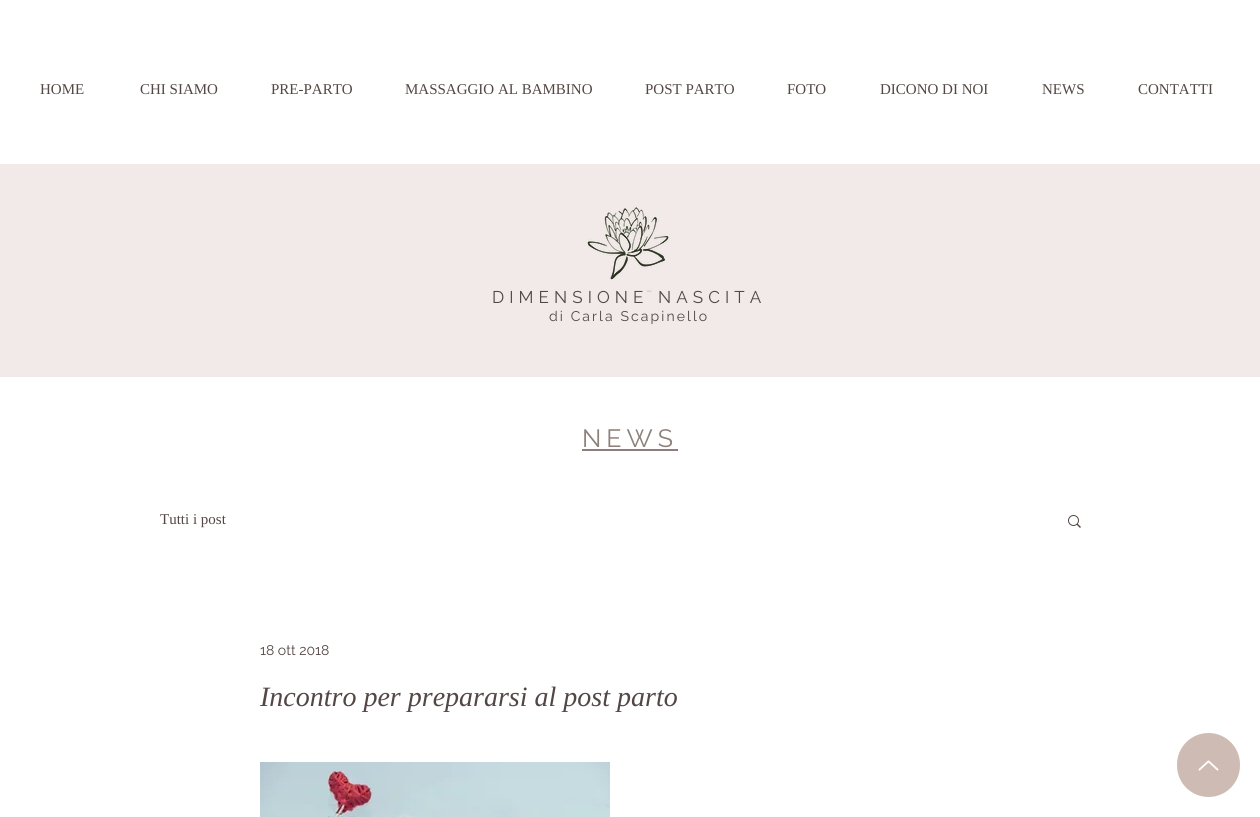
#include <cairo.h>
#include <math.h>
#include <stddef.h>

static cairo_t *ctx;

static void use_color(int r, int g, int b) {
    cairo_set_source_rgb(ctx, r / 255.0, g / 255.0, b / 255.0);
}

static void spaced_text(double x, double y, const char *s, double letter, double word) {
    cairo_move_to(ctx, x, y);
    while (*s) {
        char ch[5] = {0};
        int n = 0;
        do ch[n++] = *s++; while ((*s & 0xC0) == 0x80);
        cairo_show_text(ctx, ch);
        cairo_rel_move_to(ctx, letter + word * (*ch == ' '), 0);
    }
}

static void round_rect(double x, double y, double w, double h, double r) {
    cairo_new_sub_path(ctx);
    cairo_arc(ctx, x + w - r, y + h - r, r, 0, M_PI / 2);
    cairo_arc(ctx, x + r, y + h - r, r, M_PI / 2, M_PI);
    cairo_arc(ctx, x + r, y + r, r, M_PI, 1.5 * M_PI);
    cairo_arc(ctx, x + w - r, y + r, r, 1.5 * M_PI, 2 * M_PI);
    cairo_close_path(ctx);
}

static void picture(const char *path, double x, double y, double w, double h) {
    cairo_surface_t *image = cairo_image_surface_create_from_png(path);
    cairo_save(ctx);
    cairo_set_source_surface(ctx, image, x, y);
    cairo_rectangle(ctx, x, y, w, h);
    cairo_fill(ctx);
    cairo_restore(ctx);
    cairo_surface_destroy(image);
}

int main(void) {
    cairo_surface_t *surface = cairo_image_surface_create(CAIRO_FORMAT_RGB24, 1260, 817);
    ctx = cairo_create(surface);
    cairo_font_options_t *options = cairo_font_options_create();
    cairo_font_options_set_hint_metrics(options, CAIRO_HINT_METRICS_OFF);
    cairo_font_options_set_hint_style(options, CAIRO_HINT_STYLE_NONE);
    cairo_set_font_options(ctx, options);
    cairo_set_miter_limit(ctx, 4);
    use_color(255, 255, 255);
    cairo_paint(ctx);
    cairo_select_font_face(ctx, "Liberation Serif", CAIRO_FONT_SLANT_NORMAL, CAIRO_FONT_WEIGHT_NORMAL);
    cairo_set_font_size(ctx, 15);
    use_color(83, 71, 69);
    cairo_move_to(ctx, 40, 94);
    cairo_show_text(ctx, "HOME");
    cairo_move_to(ctx, 140, 94);
    cairo_show_text(ctx, "CHI SIAMO");
    cairo_move_to(ctx, 271, 94);
    cairo_show_text(ctx, "PRE-PARTO");
    cairo_move_to(ctx, 405, 94);
    cairo_show_text(ctx, "MASSAGGIO AL BAMBINO");
    cairo_move_to(ctx, 645, 94);
    cairo_show_text(ctx, "POST PARTO");
    cairo_move_to(ctx, 787, 94);
    cairo_show_text(ctx, "FOTO");
    cairo_move_to(ctx, 880, 94);
    cairo_show_text(ctx, "DICONO DI NOI");
    cairo_move_to(ctx, 1042, 94);
    cairo_show_text(ctx, "NEWS");
    cairo_move_to(ctx, 1138, 94);
    cairo_show_text(ctx, "CONTATTI");
    use_color(241, 234, 232);
    cairo_rectangle(ctx, 0, 164, 1260, 213);
    cairo_fill(ctx);
    picture("img1.png", 587, 205, 83, 87);
    cairo_select_font_face(ctx, "Raleway", CAIRO_FONT_SLANT_NORMAL, CAIRO_FONT_WEIGHT_NORMAL);
    cairo_set_font_size(ctx, 17);
    use_color(83, 71, 69);
    spaced_text(492, 303, "DIMENSIONE NASCITA", 5.1, 0);
    cairo_set_font_size(ctx, 14);
    spaced_text(549, 321, "di Carla Scapinello", 2.1, 0);
    cairo_set_font_size(ctx, 25);
    use_color(141, 127, 121);
    spaced_text(582, 447, "NEWS", 5, 0);
    cairo_rectangle(ctx, 582, 449, 96, 2);
    cairo_fill(ctx);
    cairo_select_font_face(ctx, "Liberation Serif", CAIRO_FONT_SLANT_NORMAL, CAIRO_FONT_WEIGHT_NORMAL);
    cairo_set_font_size(ctx, 15);
    use_color(83, 71, 69);
    cairo_move_to(ctx, 160, 524);
    cairo_show_text(ctx, "Tutti i post");
    picture("img2.png", 1068, 515, 13, 13);
    cairo_select_font_face(ctx, "Raleway", CAIRO_FONT_SLANT_NORMAL, CAIRO_FONT_WEIGHT_NORMAL);
    cairo_set_font_size(ctx, 14);
    cairo_move_to(ctx, 260, 655);
    cairo_show_text(ctx, "18 ott 2018");
    cairo_select_font_face(ctx, "Liberation Serif", CAIRO_FONT_SLANT_ITALIC, CAIRO_FONT_WEIGHT_NORMAL);
    cairo_set_font_size(ctx, 28);
    cairo_move_to(ctx, 260, 706);
    cairo_show_text(ctx, "Incontro per prepararsi al post parto");
    picture("img3.png", 260, 762, 350, 55);
    use_color(206, 188, 180);
    round_rect(1177, 733, 63, 64, 31.5);
    cairo_fill(ctx);
    picture("img4.png", 1198, 760, 21, 11);
    cairo_surface_write_to_png(surface, "result.png");
    cairo_font_options_destroy(options);
    cairo_destroy(ctx);
    cairo_surface_destroy(surface);
    return 0;
}
